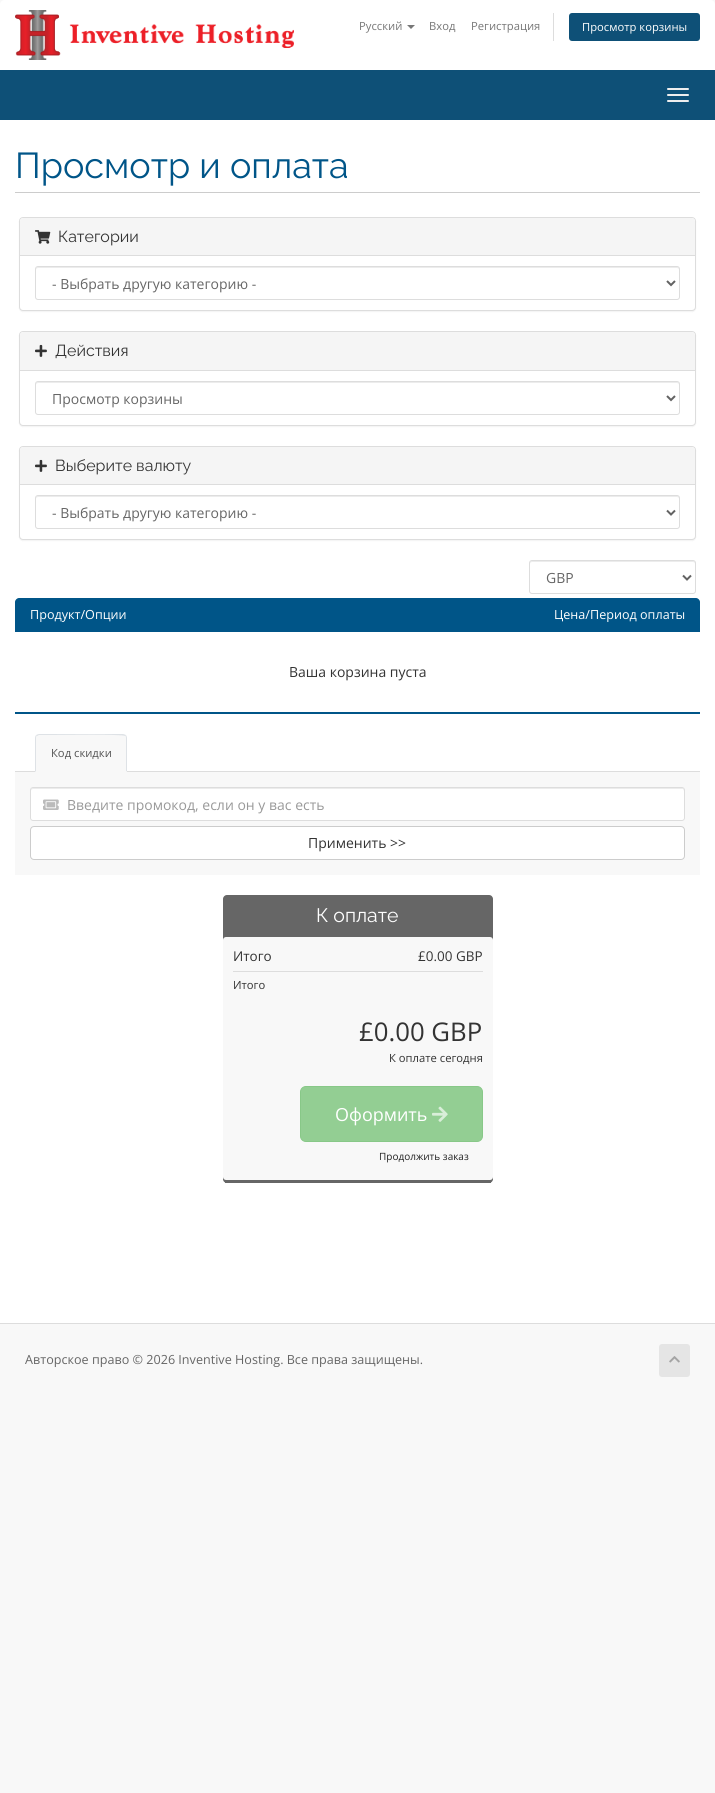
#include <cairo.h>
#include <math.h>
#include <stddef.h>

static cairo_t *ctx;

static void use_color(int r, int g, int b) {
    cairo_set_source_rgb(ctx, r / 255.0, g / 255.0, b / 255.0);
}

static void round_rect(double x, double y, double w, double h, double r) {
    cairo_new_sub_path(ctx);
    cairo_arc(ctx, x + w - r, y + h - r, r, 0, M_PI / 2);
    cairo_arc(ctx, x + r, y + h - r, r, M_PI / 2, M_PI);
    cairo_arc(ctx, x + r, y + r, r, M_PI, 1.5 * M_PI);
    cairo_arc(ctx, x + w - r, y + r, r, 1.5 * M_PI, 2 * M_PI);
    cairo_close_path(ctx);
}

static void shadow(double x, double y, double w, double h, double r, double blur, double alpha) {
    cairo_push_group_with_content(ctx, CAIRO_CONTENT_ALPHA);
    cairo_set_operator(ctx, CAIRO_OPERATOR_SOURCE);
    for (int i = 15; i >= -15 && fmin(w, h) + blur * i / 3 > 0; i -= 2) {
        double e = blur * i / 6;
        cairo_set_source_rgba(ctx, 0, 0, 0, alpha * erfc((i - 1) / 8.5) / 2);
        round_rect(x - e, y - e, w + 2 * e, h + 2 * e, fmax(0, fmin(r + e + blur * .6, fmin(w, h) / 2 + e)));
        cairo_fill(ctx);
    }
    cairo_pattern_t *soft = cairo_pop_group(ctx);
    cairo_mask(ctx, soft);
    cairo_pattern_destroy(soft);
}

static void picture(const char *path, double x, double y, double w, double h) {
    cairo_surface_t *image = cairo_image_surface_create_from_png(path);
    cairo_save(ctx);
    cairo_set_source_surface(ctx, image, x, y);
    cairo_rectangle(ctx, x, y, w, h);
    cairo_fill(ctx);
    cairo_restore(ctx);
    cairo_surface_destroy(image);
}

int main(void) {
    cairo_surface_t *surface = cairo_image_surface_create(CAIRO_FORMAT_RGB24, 715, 1793);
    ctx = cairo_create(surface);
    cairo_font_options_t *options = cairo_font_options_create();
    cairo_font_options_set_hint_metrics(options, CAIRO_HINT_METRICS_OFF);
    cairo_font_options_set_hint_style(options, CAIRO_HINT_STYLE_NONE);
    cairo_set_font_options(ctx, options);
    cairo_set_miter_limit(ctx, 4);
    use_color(248, 248, 248);
    cairo_paint(ctx);
    use_color(255, 255, 255);
    cairo_new_path(ctx);
    cairo_move_to(ctx, 5, 0);
    cairo_line_to(ctx, 710, 0);
    cairo_curve_to(ctx, 713, 0, 715, 2, 715, 5);
    cairo_line_to(ctx, 715, 70);
    cairo_line_to(ctx, 0, 70);
    cairo_line_to(ctx, 0, 5);
    cairo_curve_to(ctx, 0, 2, 2, 0, 5, 0);
    cairo_close_path(ctx);
    cairo_fill(ctx);
    picture("img1.png", 15, 10, 279, 50);
    cairo_select_font_face(ctx, "Open Sans", CAIRO_FONT_SLANT_NORMAL, CAIRO_FONT_WEIGHT_NORMAL);
    cairo_set_font_size(ctx, 11.25);
    use_color(119, 119, 119);
    cairo_move_to(ctx, 359, 30);
    cairo_show_text(ctx, "Русский");
    cairo_new_path(ctx);
    cairo_move_to(ctx, 407, 25);
    cairo_line_to(ctx, 415, 25);
    cairo_line_to(ctx, 411, 29);
    cairo_close_path(ctx);
    cairo_fill(ctx);
    cairo_move_to(ctx, 429, 30);
    cairo_show_text(ctx, "Вход");
    cairo_move_to(ctx, 471, 30);
    cairo_show_text(ctx, "Регистрация");
    use_color(221, 221, 221);
    cairo_rectangle(ctx, 553, 13, 1, 28);
    cairo_fill(ctx);
    use_color(14, 80, 119);
    round_rect(569, 13, 131, 28, 3);
    cairo_fill(ctx);
    use_color(255, 255, 255);
    cairo_move_to(ctx, 582, 31);
    cairo_show_text(ctx, "Просмотр корзины");
    use_color(14, 80, 119);
    cairo_rectangle(ctx, 0, 70, 715, 50);
    cairo_fill(ctx);
    use_color(238, 238, 238);
    round_rect(667, 88, 22, 2, 1);
    cairo_fill(ctx);
    round_rect(667, 94, 22, 2, 1);
    cairo_fill(ctx);
    round_rect(667, 100, 22, 2, 1);
    cairo_fill(ctx);
    use_color(255, 255, 255);
    cairo_rectangle(ctx, 0, 120, 715, 1203);
    cairo_fill(ctx);
    use_color(204, 204, 204);
    cairo_rectangle(ctx, 15, 192, 685, 1);
    cairo_fill(ctx);
    cairo_select_font_face(ctx, "Raleway", CAIRO_FONT_SLANT_NORMAL, CAIRO_FONT_WEIGHT_NORMAL);
    cairo_set_font_size(ctx, 36);
    use_color(0, 85, 136);
    cairo_move_to(ctx, 15, 178);
    cairo_show_text(ctx, "Просмотр и оплата");
    use_color(0, 0, 0);
    shadow(19, 218, 677, 94, 4, 0.5, 0.05);
    use_color(255, 255, 255);
    round_rect(19.5, 217.5, 676, 93, 3.5);
    cairo_fill_preserve(ctx);
    use_color(221, 221, 221);
    cairo_set_line_width(ctx, 1);
    cairo_stroke(ctx);
    use_color(245, 245, 245);
    cairo_new_path(ctx);
    cairo_move_to(ctx, 23, 218);
    cairo_line_to(ctx, 692, 218);
    cairo_curve_to(ctx, 693.5, 218, 695, 219.5, 695, 221);
    cairo_line_to(ctx, 695, 256);
    cairo_line_to(ctx, 20, 256);
    cairo_line_to(ctx, 20, 221);
    cairo_curve_to(ctx, 20, 219.5, 21.5, 218, 23, 218);
    cairo_close_path(ctx);
    cairo_fill(ctx);
    use_color(221, 221, 221);
    cairo_rectangle(ctx, 20, 255, 675, 1);
    cairo_fill(ctx);
    picture("img2.png", 35, 230, 16, 14);
    cairo_set_font_size(ctx, 16);
    use_color(51, 51, 51);
    cairo_move_to(ctx, 58, 242);
    cairo_show_text(ctx, "Категории");
    use_color(236, 236, 236);
    cairo_new_path(ctx);
    cairo_move_to(ctx, 38, 268);
    cairo_line_to(ctx, 677, 268);
    cairo_curve_to(ctx, 678, 268, 679, 269, 679, 270);
    cairo_curve_to(ctx, 679, 269, 679, 267, 677, 267);
    cairo_line_to(ctx, 38, 267);
    cairo_curve_to(ctx, 36, 267, 36, 269, 36, 270);
    cairo_curve_to(ctx, 36, 269, 37, 268, 38, 268);
    cairo_close_path(ctx);
    cairo_fill(ctx);
    round_rect(35.5, 266.5, 644, 33, 2.5);
    use_color(221, 221, 221);
    cairo_stroke(ctx);
    cairo_new_path(ctx);
    cairo_move_to(ctx, 667, 281);
    cairo_line_to(ctx, 671, 285);
    cairo_line_to(ctx, 675, 281);
    use_color(98, 98, 98);
    cairo_set_line_width(ctx, 2);
    cairo_stroke(ctx);
    cairo_select_font_face(ctx, "Open Sans", CAIRO_FONT_SLANT_NORMAL, CAIRO_FONT_WEIGHT_NORMAL);
    cairo_set_font_size(ctx, 14);
    use_color(102, 102, 102);
    cairo_move_to(ctx, 52, 289);
    cairo_show_text(ctx, "- Выбрать другую категорию -");
    use_color(0, 0, 0);
    shadow(19, 332, 677, 95, 4, 0.5, 0.05);
    use_color(255, 255, 255);
    round_rect(19.5, 331.5, 676, 94, 3.5);
    cairo_fill_preserve(ctx);
    use_color(221, 221, 221);
    cairo_set_line_width(ctx, 1);
    cairo_stroke(ctx);
    use_color(245, 245, 245);
    cairo_new_path(ctx);
    cairo_move_to(ctx, 23, 332);
    cairo_line_to(ctx, 692, 332);
    cairo_curve_to(ctx, 693.5, 332, 695, 333.5, 695, 335);
    cairo_line_to(ctx, 695, 371);
    cairo_line_to(ctx, 20, 371);
    cairo_line_to(ctx, 20, 335);
    cairo_curve_to(ctx, 20, 333.5, 21.5, 332, 23, 332);
    cairo_close_path(ctx);
    cairo_fill(ctx);
    use_color(221, 221, 221);
    cairo_rectangle(ctx, 20, 370, 675, 1);
    cairo_fill(ctx);
    picture("img3.png", 35, 344, 12, 13);
    cairo_select_font_face(ctx, "Raleway", CAIRO_FONT_SLANT_NORMAL, CAIRO_FONT_WEIGHT_NORMAL);
    cairo_set_font_size(ctx, 16);
    use_color(51, 51, 51);
    cairo_move_to(ctx, 55, 356);
    cairo_show_text(ctx, "Действия");
    use_color(236, 236, 236);
    cairo_new_path(ctx);
    cairo_move_to(ctx, 38, 383);
    cairo_line_to(ctx, 677, 383);
    cairo_curve_to(ctx, 678, 383, 679, 384, 679, 385);
    cairo_curve_to(ctx, 679, 384, 679, 382, 677, 382);
    cairo_line_to(ctx, 38, 382);
    cairo_curve_to(ctx, 36, 382, 36, 384, 36, 385);
    cairo_curve_to(ctx, 36, 384, 37, 383, 38, 383);
    cairo_close_path(ctx);
    cairo_fill(ctx);
    round_rect(35.5, 381.5, 644, 33, 2.5);
    use_color(221, 221, 221);
    cairo_stroke(ctx);
    cairo_new_path(ctx);
    cairo_move_to(ctx, 667, 396);
    cairo_line_to(ctx, 671, 400);
    cairo_line_to(ctx, 675, 396);
    use_color(98, 98, 98);
    cairo_set_line_width(ctx, 2);
    cairo_stroke(ctx);
    cairo_select_font_face(ctx, "Open Sans", CAIRO_FONT_SLANT_NORMAL, CAIRO_FONT_WEIGHT_NORMAL);
    cairo_set_font_size(ctx, 14);
    use_color(102, 102, 102);
    cairo_move_to(ctx, 52, 404);
    cairo_show_text(ctx, "Просмотр корзины");
    use_color(0, 0, 0);
    shadow(19, 447, 677, 94, 4, 0.5, 0.05);
    use_color(255, 255, 255);
    round_rect(19.5, 446.5, 676, 93, 3.5);
    cairo_fill_preserve(ctx);
    use_color(221, 221, 221);
    cairo_set_line_width(ctx, 1);
    cairo_stroke(ctx);
    use_color(245, 245, 245);
    cairo_new_path(ctx);
    cairo_move_to(ctx, 23, 447);
    cairo_line_to(ctx, 692, 447);
    cairo_curve_to(ctx, 693.5, 447, 695, 448.5, 695, 450);
    cairo_line_to(ctx, 695, 485);
    cairo_line_to(ctx, 20, 485);
    cairo_line_to(ctx, 20, 450);
    cairo_curve_to(ctx, 20, 448.5, 21.5, 447, 23, 447);
    cairo_close_path(ctx);
    cairo_fill(ctx);
    use_color(221, 221, 221);
    cairo_rectangle(ctx, 20, 484, 675, 1);
    cairo_fill(ctx);
    picture("img3.png", 35, 459, 12, 13);
    cairo_select_font_face(ctx, "Raleway", CAIRO_FONT_SLANT_NORMAL, CAIRO_FONT_WEIGHT_NORMAL);
    cairo_set_font_size(ctx, 16);
    use_color(51, 51, 51);
    cairo_move_to(ctx, 55, 471);
    cairo_show_text(ctx, "Выберите валюту");
    use_color(236, 236, 236);
    cairo_new_path(ctx);
    cairo_move_to(ctx, 38, 497);
    cairo_line_to(ctx, 677, 497);
    cairo_curve_to(ctx, 678, 497, 679, 498, 679, 499);
    cairo_curve_to(ctx, 679, 498, 679, 496, 677, 496);
    cairo_line_to(ctx, 38, 496);
    cairo_curve_to(ctx, 36, 496, 36, 498, 36, 499);
    cairo_curve_to(ctx, 36, 498, 37, 497, 38, 497);
    cairo_close_path(ctx);
    cairo_fill(ctx);
    round_rect(35.5, 495.5, 644, 33, 2.5);
    use_color(221, 221, 221);
    cairo_stroke(ctx);
    cairo_new_path(ctx);
    cairo_move_to(ctx, 667, 510.5);
    cairo_line_to(ctx, 671, 514.5);
    cairo_line_to(ctx, 675, 510.5);
    use_color(98, 98, 98);
    cairo_set_line_width(ctx, 2);
    cairo_stroke(ctx);
    cairo_select_font_face(ctx, "Open Sans", CAIRO_FONT_SLANT_NORMAL, CAIRO_FONT_WEIGHT_NORMAL);
    cairo_set_font_size(ctx, 14);
    use_color(102, 102, 102);
    cairo_move_to(ctx, 52, 518);
    cairo_show_text(ctx, "- Выбрать другую категорию -");
    use_color(236, 236, 236);
    cairo_new_path(ctx);
    cairo_move_to(ctx, 532, 562);
    cairo_line_to(ctx, 693, 562);
    cairo_curve_to(ctx, 694, 562, 695, 563, 695, 564);
    cairo_curve_to(ctx, 695, 563, 695, 561, 693, 561);
    cairo_line_to(ctx, 532, 561);
    cairo_curve_to(ctx, 530, 561, 530, 563, 530, 564);
    cairo_curve_to(ctx, 530, 563, 531, 562, 532, 562);
    cairo_close_path(ctx);
    cairo_fill(ctx);
    round_rect(529.5, 560.5, 166, 33, 2.5);
    use_color(221, 221, 221);
    cairo_set_line_width(ctx, 1);
    cairo_stroke(ctx);
    cairo_new_path(ctx);
    cairo_move_to(ctx, 683, 575.5);
    cairo_line_to(ctx, 687, 579.5);
    cairo_line_to(ctx, 691, 575.5);
    use_color(98, 98, 98);
    cairo_set_line_width(ctx, 2);
    cairo_stroke(ctx);
    use_color(102, 102, 102);
    cairo_move_to(ctx, 546, 583);
    cairo_show_text(ctx, "GBP");
    use_color(0, 85, 136);
    cairo_new_path(ctx);
    cairo_move_to(ctx, 19, 598);
    cairo_line_to(ctx, 696, 598);
    cairo_curve_to(ctx, 698, 598, 700, 600, 700, 602);
    cairo_line_to(ctx, 700, 632);
    cairo_line_to(ctx, 15, 632);
    cairo_line_to(ctx, 15, 602);
    cairo_curve_to(ctx, 15, 600, 17, 598, 19, 598);
    cairo_close_path(ctx);
    cairo_fill(ctx);
    cairo_set_font_size(ctx, 12.6);
    use_color(255, 255, 255);
    cairo_move_to(ctx, 30, 619);
    cairo_show_text(ctx, "Продукт/Опции");
    cairo_move_to(ctx, 554, 619);
    cairo_show_text(ctx, "Цена/Период оплаты");
    use_color(0, 85, 136);
    cairo_rectangle(ctx, 15, 712, 685, 2);
    cairo_fill(ctx);
    cairo_set_font_size(ctx, 14);
    use_color(51, 51, 51);
    cairo_move_to(ctx, 289, 677);
    cairo_show_text(ctx, "Ваша корзина пуста");
    use_color(221, 221, 221);
    cairo_rectangle(ctx, 15, 771, 685, 1);
    cairo_fill(ctx);
    use_color(248, 248, 248);
    cairo_new_path(ctx);
    cairo_move_to(ctx, 39, 734);
    cairo_line_to(ctx, 123, 734);
    cairo_curve_to(ctx, 125, 734, 127, 736, 127, 738);
    cairo_line_to(ctx, 127, 772);
    cairo_line_to(ctx, 35, 772);
    cairo_line_to(ctx, 35, 738);
    cairo_curve_to(ctx, 35, 736, 37, 734, 39, 734);
    cairo_close_path(ctx);
    cairo_fill(ctx);
    use_color(222, 226, 230);
    cairo_new_path(ctx);
    cairo_move_to(ctx, 39, 734);
    cairo_line_to(ctx, 36, 735);
    cairo_line_to(ctx, 37, 736);
    cairo_line_to(ctx, 39, 735);
    cairo_line_to(ctx, 53, 735);
    cairo_curve_to(ctx, 61, 735, 123, 734, 125, 736);
    cairo_line_to(ctx, 126, 735);
    cairo_line_to(ctx, 123, 734);
    cairo_close_path(ctx);
    cairo_fill(ctx);
    cairo_new_path(ctx);
    cairo_move_to(ctx, 127, 772);
    cairo_line_to(ctx, 127, 738);
    cairo_curve_to(ctx, 127, 737, 126.5, 736, 126, 735);
    cairo_line_to(ctx, 125, 736);
    cairo_curve_to(ctx, 126, 736, 126, 737, 126, 738);
    cairo_line_to(ctx, 126, 771);
    cairo_close_path(ctx);
    cairo_fill(ctx);
    use_color(248, 248, 248);
    cairo_new_path(ctx);
    cairo_move_to(ctx, 127, 772);
    cairo_line_to(ctx, 126, 771);
    cairo_line_to(ctx, 36, 771);
    cairo_line_to(ctx, 35, 772);
    cairo_close_path(ctx);
    cairo_fill(ctx);
    use_color(222, 226, 230);
    cairo_new_path(ctx);
    cairo_move_to(ctx, 35, 772);
    cairo_line_to(ctx, 36, 771);
    cairo_line_to(ctx, 36, 738);
    cairo_curve_to(ctx, 36, 737, 36, 736, 37, 736);
    cairo_line_to(ctx, 36, 735);
    cairo_curve_to(ctx, 35.5, 736, 35, 737, 35, 738);
    cairo_close_path(ctx);
    cairo_fill(ctx);
    cairo_set_font_size(ctx, 11.25);
    use_color(85, 85, 85);
    cairo_move_to(ctx, 51, 757);
    cairo_show_text(ctx, "Код скидки");
    use_color(248, 248, 248);
    cairo_rectangle(ctx, 15, 772, 685, 103);
    cairo_fill(ctx);
    use_color(255, 255, 255);
    round_rect(30, 787, 655, 34, 3);
    cairo_fill(ctx);
    use_color(236, 236, 236);
    cairo_new_path(ctx);
    cairo_move_to(ctx, 33, 789);
    cairo_line_to(ctx, 683, 789);
    cairo_line_to(ctx, 684, 791);
    cairo_curve_to(ctx, 684, 790, 684, 788, 682, 788);
    cairo_line_to(ctx, 33, 788);
    cairo_curve_to(ctx, 31, 788, 31, 790, 31, 791);
    cairo_curve_to(ctx, 31, 790, 32, 789, 33, 789);
    cairo_close_path(ctx);
    cairo_fill(ctx);
    round_rect(30.5, 787.5, 654, 33, 2.5);
    use_color(221, 221, 221);
    cairo_set_line_width(ctx, 1);
    cairo_stroke(ctx);
    picture("img4.png", 43, 799, 16, 11);
    cairo_set_font_size(ctx, 14);
    use_color(153, 153, 153);
    cairo_move_to(ctx, 67, 810);
    cairo_show_text(ctx, "Введите промокод, если он у вас есть");
    use_color(255, 255, 255);
    round_rect(30.5, 826.5, 654, 33, 3.5);
    cairo_fill_preserve(ctx);
    use_color(204, 204, 204);
    cairo_stroke(ctx);
    use_color(51, 51, 51);
    cairo_move_to(ctx, 308, 848);
    cairo_show_text(ctx, "Применить >>");
    use_color(102, 102, 102);
    round_rect(223, 895, 270, 288, 4);
    cairo_fill(ctx);
    cairo_rectangle(ctx, 225, 1182, 266, 1);
    cairo_fill(ctx);
    cairo_select_font_face(ctx, "Raleway", CAIRO_FONT_SLANT_NORMAL, CAIRO_FONT_WEIGHT_NORMAL);
    cairo_set_font_size(ctx, 19.5);
    use_color(255, 255, 255);
    cairo_move_to(ctx, 316, 922);
    cairo_show_text(ctx, "К оплате");
    use_color(248, 248, 248);
    round_rect(223, 937, 270, 243, 3);
    cairo_fill(ctx);
    use_color(221, 221, 221);
    cairo_rectangle(ctx, 233, 971, 250, 1);
    cairo_fill(ctx);
    cairo_select_font_face(ctx, "Open Sans", CAIRO_FONT_SLANT_NORMAL, CAIRO_FONT_WEIGHT_NORMAL);
    cairo_set_font_size(ctx, 13.5);
    use_color(51, 51, 51);
    cairo_move_to(ctx, 233, 961);
    cairo_show_text(ctx, "Итого");
    cairo_move_to(ctx, 418, 961);
    cairo_show_text(ctx, "£0.00 GBP");
    cairo_set_font_size(ctx, 11.25);
    cairo_move_to(ctx, 233, 989);
    cairo_show_text(ctx, "Итого");
    cairo_set_font_size(ctx, 25.75);
    cairo_move_to(ctx, 359, 1041);
    cairo_show_text(ctx, "£0.00 GBP");
    cairo_set_font_size(ctx, 11.25);
    cairo_move_to(ctx, 389, 1062);
    cairo_show_text(ctx, "К оплате сегодня");
    use_color(147, 206, 147);
    round_rect(300.5, 1086.5, 182, 55, 5.5);
    cairo_fill_preserve(ctx);
    use_color(136, 200, 136);
    cairo_stroke(ctx);
    cairo_set_font_size(ctx, 18);
    use_color(255, 255, 255);
    cairo_move_to(ctx, 335, 1121);
    cairo_show_text(ctx, "Оформить");
    picture("img5.png", 432, 1106, 16, 16);
    cairo_set_font_size(ctx, 10);
    use_color(34, 34, 34);
    cairo_move_to(ctx, 379, 1160);
    cairo_show_text(ctx, "Продолжить заказ");
    use_color(221, 221, 221);
    cairo_rectangle(ctx, 0, 1323, 715, 1);
    cairo_fill(ctx);
    cairo_set_font_size(ctx, 12.6);
    use_color(102, 102, 102);
    cairo_move_to(ctx, 25, 1364);
    cairo_show_text(ctx, "Авторское право © 2026 Inventive Hosting. Все права защищены.");
    use_color(229, 229, 229);
    round_rect(659, 1344, 31, 33, 3);
    cairo_fill(ctx);
    picture("img6.png", 669, 1356, 11, 7);
    cairo_surface_write_to_png(surface, "result.png");
    cairo_font_options_destroy(options);
    cairo_destroy(ctx);
    cairo_surface_destroy(surface);
    return 0;
}
